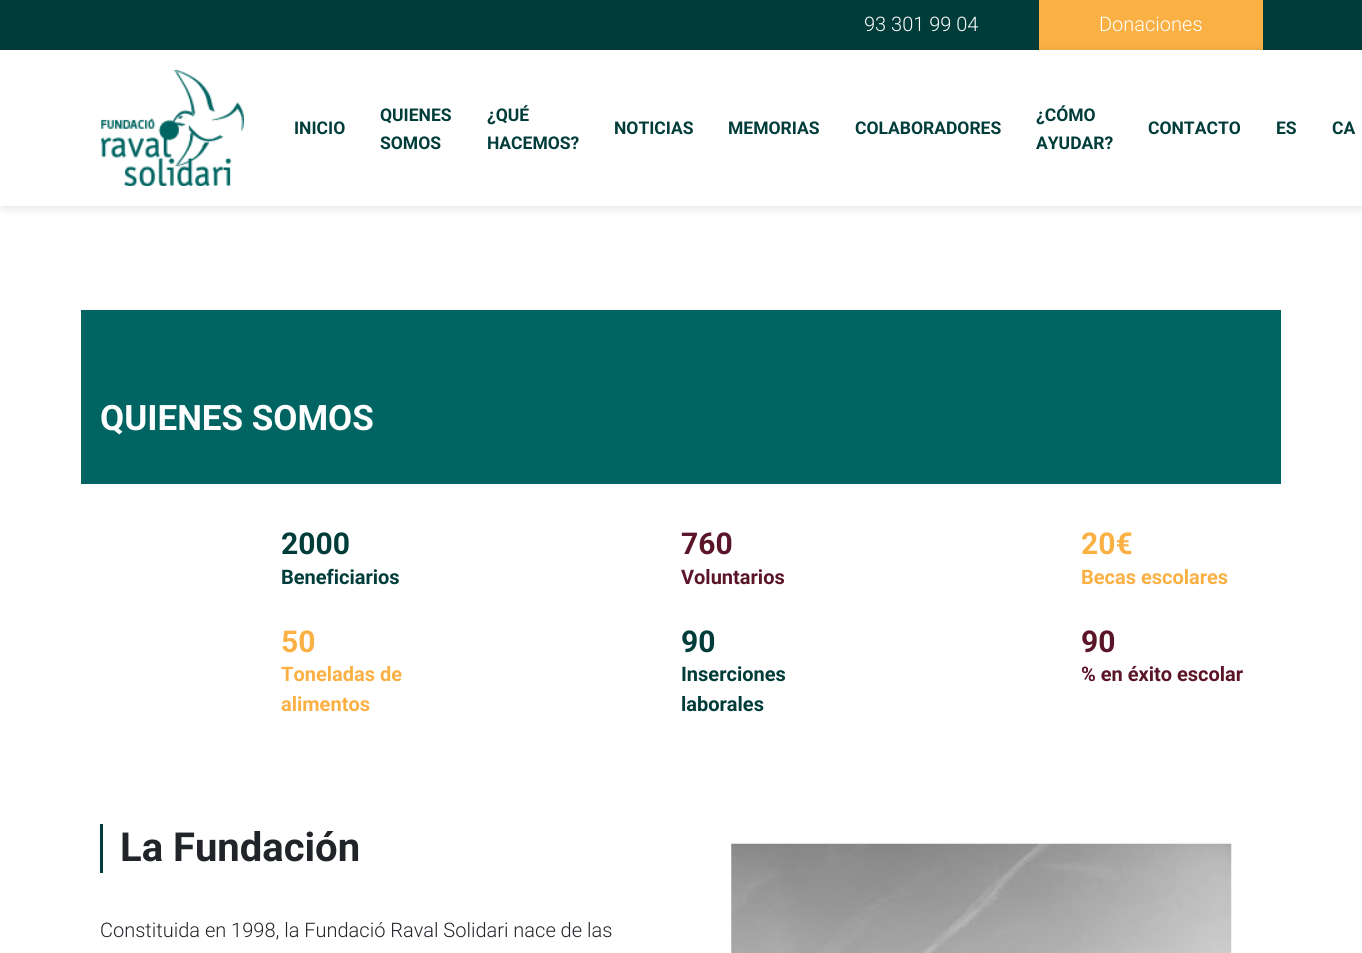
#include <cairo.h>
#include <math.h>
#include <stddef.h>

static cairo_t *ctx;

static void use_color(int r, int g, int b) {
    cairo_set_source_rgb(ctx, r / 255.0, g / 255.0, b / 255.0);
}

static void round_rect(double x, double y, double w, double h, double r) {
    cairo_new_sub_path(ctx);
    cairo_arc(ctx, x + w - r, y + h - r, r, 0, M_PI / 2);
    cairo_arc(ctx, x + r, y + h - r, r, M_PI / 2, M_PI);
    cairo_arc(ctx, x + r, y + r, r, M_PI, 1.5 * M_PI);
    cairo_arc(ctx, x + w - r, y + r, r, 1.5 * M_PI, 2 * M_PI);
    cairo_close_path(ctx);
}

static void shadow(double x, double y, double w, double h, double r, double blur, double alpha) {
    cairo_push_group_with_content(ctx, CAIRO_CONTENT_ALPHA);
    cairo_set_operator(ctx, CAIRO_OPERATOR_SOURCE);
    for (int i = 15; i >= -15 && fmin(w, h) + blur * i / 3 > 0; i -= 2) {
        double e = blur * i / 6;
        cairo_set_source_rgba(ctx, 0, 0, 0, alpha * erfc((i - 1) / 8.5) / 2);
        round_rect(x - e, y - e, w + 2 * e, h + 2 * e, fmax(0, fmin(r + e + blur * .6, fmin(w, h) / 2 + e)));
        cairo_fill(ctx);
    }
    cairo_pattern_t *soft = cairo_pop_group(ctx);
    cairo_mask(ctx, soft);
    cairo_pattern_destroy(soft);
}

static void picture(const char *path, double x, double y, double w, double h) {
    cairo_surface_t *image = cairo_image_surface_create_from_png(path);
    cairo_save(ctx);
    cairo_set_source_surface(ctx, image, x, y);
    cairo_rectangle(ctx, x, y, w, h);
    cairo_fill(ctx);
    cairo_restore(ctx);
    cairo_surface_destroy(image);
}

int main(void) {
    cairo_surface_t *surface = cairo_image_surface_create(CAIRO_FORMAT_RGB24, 1362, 953);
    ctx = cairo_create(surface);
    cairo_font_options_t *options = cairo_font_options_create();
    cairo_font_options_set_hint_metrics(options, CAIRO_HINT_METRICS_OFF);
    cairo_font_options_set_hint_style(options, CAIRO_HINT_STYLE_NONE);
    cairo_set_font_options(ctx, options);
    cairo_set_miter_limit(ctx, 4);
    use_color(255, 255, 255);
    cairo_paint(ctx);
    use_color(0, 60, 58);
    cairo_rectangle(ctx, 0, 0, 1362, 50);
    cairo_fill(ctx);
    cairo_select_font_face(ctx, "Roboto Light", CAIRO_FONT_SLANT_NORMAL, CAIRO_FONT_WEIGHT_NORMAL);
    cairo_set_font_size(ctx, 20);
    use_color(255, 255, 255);
    cairo_move_to(ctx, 864, 31);
    cairo_show_text(ctx, "93 301 99 04");
    use_color(251, 176, 68);
    cairo_rectangle(ctx, 1039, 0, 224, 50);
    cairo_fill(ctx);
    use_color(255, 255, 255);
    cairo_move_to(ctx, 1099, 31);
    cairo_show_text(ctx, "Donaciones");
    cairo_save(ctx);
    cairo_set_fill_rule(ctx, CAIRO_FILL_RULE_EVEN_ODD);
    cairo_new_path(ctx);
    cairo_move_to(ctx, 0, 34);
    cairo_line_to(ctx, 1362, 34);
    cairo_line_to(ctx, 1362, 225);
    cairo_line_to(ctx, 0, 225);
    cairo_close_path(ctx);
    cairo_move_to(ctx, 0, 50);
    cairo_line_to(ctx, 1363, 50);
    cairo_line_to(ctx, 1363, 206);
    cairo_line_to(ctx, 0, 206);
    cairo_close_path(ctx);
    cairo_clip(ctx);
    use_color(0, 0, 0);
    shadow(3, 53, 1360, 153, 0, 6, 0.15);
    cairo_restore(ctx);
    picture("img1.png", 100, 70, 144, 116);
    cairo_select_font_face(ctx, "Roboto", CAIRO_FONT_SLANT_NORMAL, CAIRO_FONT_WEIGHT_BOLD);
    cairo_set_font_size(ctx, 17.5);
    use_color(0, 60, 58);
    cairo_move_to(ctx, 294, 134);
    cairo_show_text(ctx, "INICIO");
    cairo_move_to(ctx, 380, 121);
    cairo_show_text(ctx, "QUIENES");
    cairo_move_to(ctx, 380, 149);
    cairo_show_text(ctx, "SOMOS");
    cairo_move_to(ctx, 487, 121);
    cairo_show_text(ctx, "¿QUÉ");
    cairo_move_to(ctx, 487, 149);
    cairo_show_text(ctx, "HACEMOS?");
    cairo_move_to(ctx, 614, 134);
    cairo_show_text(ctx, "NOTICIAS");
    cairo_move_to(ctx, 728, 134);
    cairo_show_text(ctx, "MEMORIAS");
    cairo_move_to(ctx, 855, 134);
    cairo_show_text(ctx, "COLABORADORES");
    cairo_move_to(ctx, 1036, 121);
    cairo_show_text(ctx, "¿CÓMO");
    cairo_move_to(ctx, 1036, 149);
    cairo_show_text(ctx, "AYUDAR?");
    cairo_move_to(ctx, 1148, 134);
    cairo_show_text(ctx, "CONTACTO");
    cairo_move_to(ctx, 1276, 134);
    cairo_show_text(ctx, "ES");
    cairo_move_to(ctx, 1332, 134);
    cairo_show_text(ctx, "CA");
    use_color(0, 101, 98);
    cairo_rectangle(ctx, 81, 310, 1200, 174);
    cairo_fill(ctx);
    cairo_set_font_size(ctx, 35);
    use_color(255, 255, 255);
    cairo_move_to(ctx, 100, 430);
    cairo_show_text(ctx, "QUIENES SOMOS");
    cairo_set_font_size(ctx, 30);
    use_color(0, 60, 58);
    cairo_move_to(ctx, 281, 554);
    cairo_show_text(ctx, "2000");
    cairo_set_font_size(ctx, 20);
    cairo_move_to(ctx, 281, 584);
    cairo_show_text(ctx, "Beneficiarios");
    cairo_set_font_size(ctx, 30);
    use_color(91, 21, 41);
    cairo_move_to(ctx, 681, 554);
    cairo_show_text(ctx, "760");
    cairo_set_font_size(ctx, 20);
    cairo_move_to(ctx, 681, 584);
    cairo_show_text(ctx, "Voluntarios");
    cairo_set_font_size(ctx, 30);
    use_color(251, 176, 68);
    cairo_move_to(ctx, 1081, 554);
    cairo_show_text(ctx, "20€");
    cairo_set_font_size(ctx, 20);
    cairo_move_to(ctx, 1081, 584);
    cairo_show_text(ctx, "Becas escolares");
    cairo_set_font_size(ctx, 30);
    cairo_move_to(ctx, 281, 652);
    cairo_show_text(ctx, "50");
    cairo_set_font_size(ctx, 20);
    cairo_move_to(ctx, 281, 681);
    cairo_show_text(ctx, "Toneladas de");
    cairo_move_to(ctx, 281, 711);
    cairo_show_text(ctx, "alimentos");
    cairo_set_font_size(ctx, 30);
    use_color(0, 60, 58);
    cairo_move_to(ctx, 681, 652);
    cairo_show_text(ctx, "90");
    cairo_set_font_size(ctx, 20);
    cairo_move_to(ctx, 681, 681);
    cairo_show_text(ctx, "Inserciones");
    cairo_move_to(ctx, 681, 711);
    cairo_show_text(ctx, "laborales");
    cairo_set_font_size(ctx, 30);
    use_color(91, 21, 41);
    cairo_move_to(ctx, 1081, 652);
    cairo_show_text(ctx, "90");
    cairo_set_font_size(ctx, 20);
    cairo_move_to(ctx, 1081, 681);
    cairo_show_text(ctx, "% en éxito escolar");
    use_color(0, 60, 58);
    cairo_rectangle(ctx, 100, 824, 3, 49);
    cairo_fill(ctx);
    cairo_set_font_size(ctx, 40);
    use_color(33, 37, 41);
    cairo_move_to(ctx, 120, 861);
    cairo_show_text(ctx, "La Fundación");
    cairo_select_font_face(ctx, "Roboto Light", CAIRO_FONT_SLANT_NORMAL, CAIRO_FONT_WEIGHT_NORMAL);
    cairo_set_font_size(ctx, 20);
    cairo_move_to(ctx, 100, 937);
    cairo_show_text(ctx, "Constituida en 1998, la Fundació Raval Solidari nace de las");
    picture("img2.png", 731, 843, 501, 110);
    cairo_surface_write_to_png(surface, "result.png");
    cairo_font_options_destroy(options);
    cairo_destroy(ctx);
    cairo_surface_destroy(surface);
    return 0;
}
